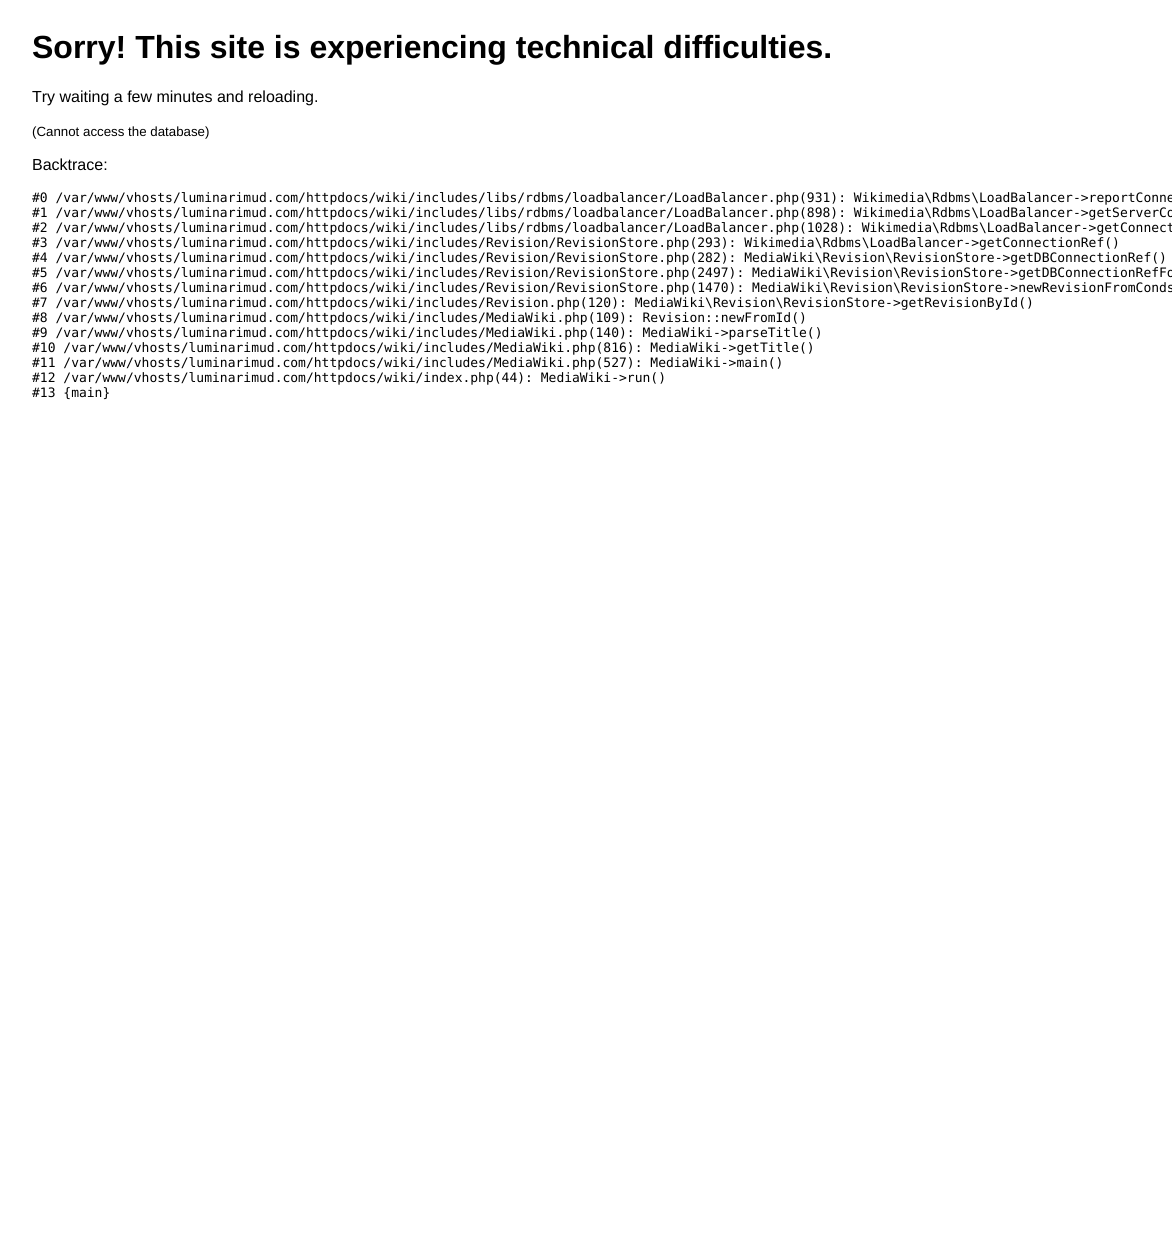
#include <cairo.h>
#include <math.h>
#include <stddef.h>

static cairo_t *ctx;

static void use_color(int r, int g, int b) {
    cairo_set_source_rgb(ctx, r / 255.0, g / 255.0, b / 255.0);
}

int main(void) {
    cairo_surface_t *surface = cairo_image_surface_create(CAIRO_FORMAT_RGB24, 1172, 1243);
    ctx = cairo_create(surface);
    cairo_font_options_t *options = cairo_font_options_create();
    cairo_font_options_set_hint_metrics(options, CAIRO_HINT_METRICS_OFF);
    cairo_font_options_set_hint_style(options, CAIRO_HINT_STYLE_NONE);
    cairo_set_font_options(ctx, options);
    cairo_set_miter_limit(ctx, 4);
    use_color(255, 255, 255);
    cairo_paint(ctx);
    cairo_select_font_face(ctx, "Liberation Sans", CAIRO_FONT_SLANT_NORMAL, CAIRO_FONT_WEIGHT_BOLD);
    cairo_set_font_size(ctx, 32);
    use_color(0, 0, 0);
    cairo_move_to(ctx, 32, 58);
    cairo_show_text(ctx, "Sorry! This site is experiencing technical difficulties.");
    cairo_select_font_face(ctx, "Liberation Sans", CAIRO_FONT_SLANT_NORMAL, CAIRO_FONT_WEIGHT_NORMAL);
    cairo_set_font_size(ctx, 16);
    cairo_move_to(ctx, 32, 102);
    cairo_show_text(ctx, "Try waiting a few minutes and reloading.");
    cairo_set_font_size(ctx, 13.3);
    cairo_move_to(ctx, 32, 136);
    cairo_show_text(ctx, "(Cannot access the database)");
    cairo_set_font_size(ctx, 16);
    cairo_move_to(ctx, 32, 170);
    cairo_show_text(ctx, "Backtrace:");
    cairo_select_font_face(ctx, "DejaVu Sans Mono", CAIRO_FONT_SLANT_NORMAL, CAIRO_FONT_WEIGHT_NORMAL);
    cairo_set_font_size(ctx, 13);
    cairo_move_to(ctx, 32, 202);
    cairo_show_text(ctx, "#0 /var/www/vhosts/luminarimud.com/httpdocs/wiki/includes/libs/rdbms/loadbalancer/LoadBalancer.php(931): Wikimedia\\Rdbms\\LoadBalancer->reportConne");
    cairo_move_to(ctx, 32, 217);
    cairo_show_text(ctx, "#1 /var/www/vhosts/luminarimud.com/httpdocs/wiki/includes/libs/rdbms/loadbalancer/LoadBalancer.php(898): Wikimedia\\Rdbms\\LoadBalancer->getServerCo");
    cairo_move_to(ctx, 32, 232);
    cairo_show_text(ctx, "#2 /var/www/vhosts/luminarimud.com/httpdocs/wiki/includes/libs/rdbms/loadbalancer/LoadBalancer.php(1028): Wikimedia\\Rdbms\\LoadBalancer->getConnect");
    cairo_move_to(ctx, 32, 247);
    cairo_show_text(ctx, "#3 /var/www/vhosts/luminarimud.com/httpdocs/wiki/includes/Revision/RevisionStore.php(293): Wikimedia\\Rdbms\\LoadBalancer->getConnectionRef()");
    cairo_move_to(ctx, 32, 262);
    cairo_show_text(ctx, "#4 /var/www/vhosts/luminarimud.com/httpdocs/wiki/includes/Revision/RevisionStore.php(282): MediaWiki\\Revision\\RevisionStore->getDBConnectionRef()");
    cairo_move_to(ctx, 32, 277);
    cairo_show_text(ctx, "#5 /var/www/vhosts/luminarimud.com/httpdocs/wiki/includes/Revision/RevisionStore.php(2497): MediaWiki\\Revision\\RevisionStore->getDBConnectionRefFo");
    cairo_move_to(ctx, 32, 292);
    cairo_show_text(ctx, "#6 /var/www/vhosts/luminarimud.com/httpdocs/wiki/includes/Revision/RevisionStore.php(1470): MediaWiki\\Revision\\RevisionStore->newRevisionFromConds");
    cairo_move_to(ctx, 32, 307);
    cairo_show_text(ctx, "#7 /var/www/vhosts/luminarimud.com/httpdocs/wiki/includes/Revision.php(120): MediaWiki\\Revision\\RevisionStore->getRevisionById()");
    cairo_move_to(ctx, 32, 322);
    cairo_show_text(ctx, "#8 /var/www/vhosts/luminarimud.com/httpdocs/wiki/includes/MediaWiki.php(109): Revision::newFromId()");
    cairo_move_to(ctx, 32, 337);
    cairo_show_text(ctx, "#9 /var/www/vhosts/luminarimud.com/httpdocs/wiki/includes/MediaWiki.php(140): MediaWiki->parseTitle()");
    cairo_move_to(ctx, 32, 352);
    cairo_show_text(ctx, "#10 /var/www/vhosts/luminarimud.com/httpdocs/wiki/includes/MediaWiki.php(816): MediaWiki->getTitle()");
    cairo_move_to(ctx, 32, 367);
    cairo_show_text(ctx, "#11 /var/www/vhosts/luminarimud.com/httpdocs/wiki/includes/MediaWiki.php(527): MediaWiki->main()");
    cairo_move_to(ctx, 32, 382);
    cairo_show_text(ctx, "#12 /var/www/vhosts/luminarimud.com/httpdocs/wiki/index.php(44): MediaWiki->run()");
    cairo_move_to(ctx, 32, 397);
    cairo_show_text(ctx, "#13 {main}");
    cairo_surface_write_to_png(surface, "result.png");
    cairo_font_options_destroy(options);
    cairo_destroy(ctx);
    cairo_surface_destroy(surface);
    return 0;
}
